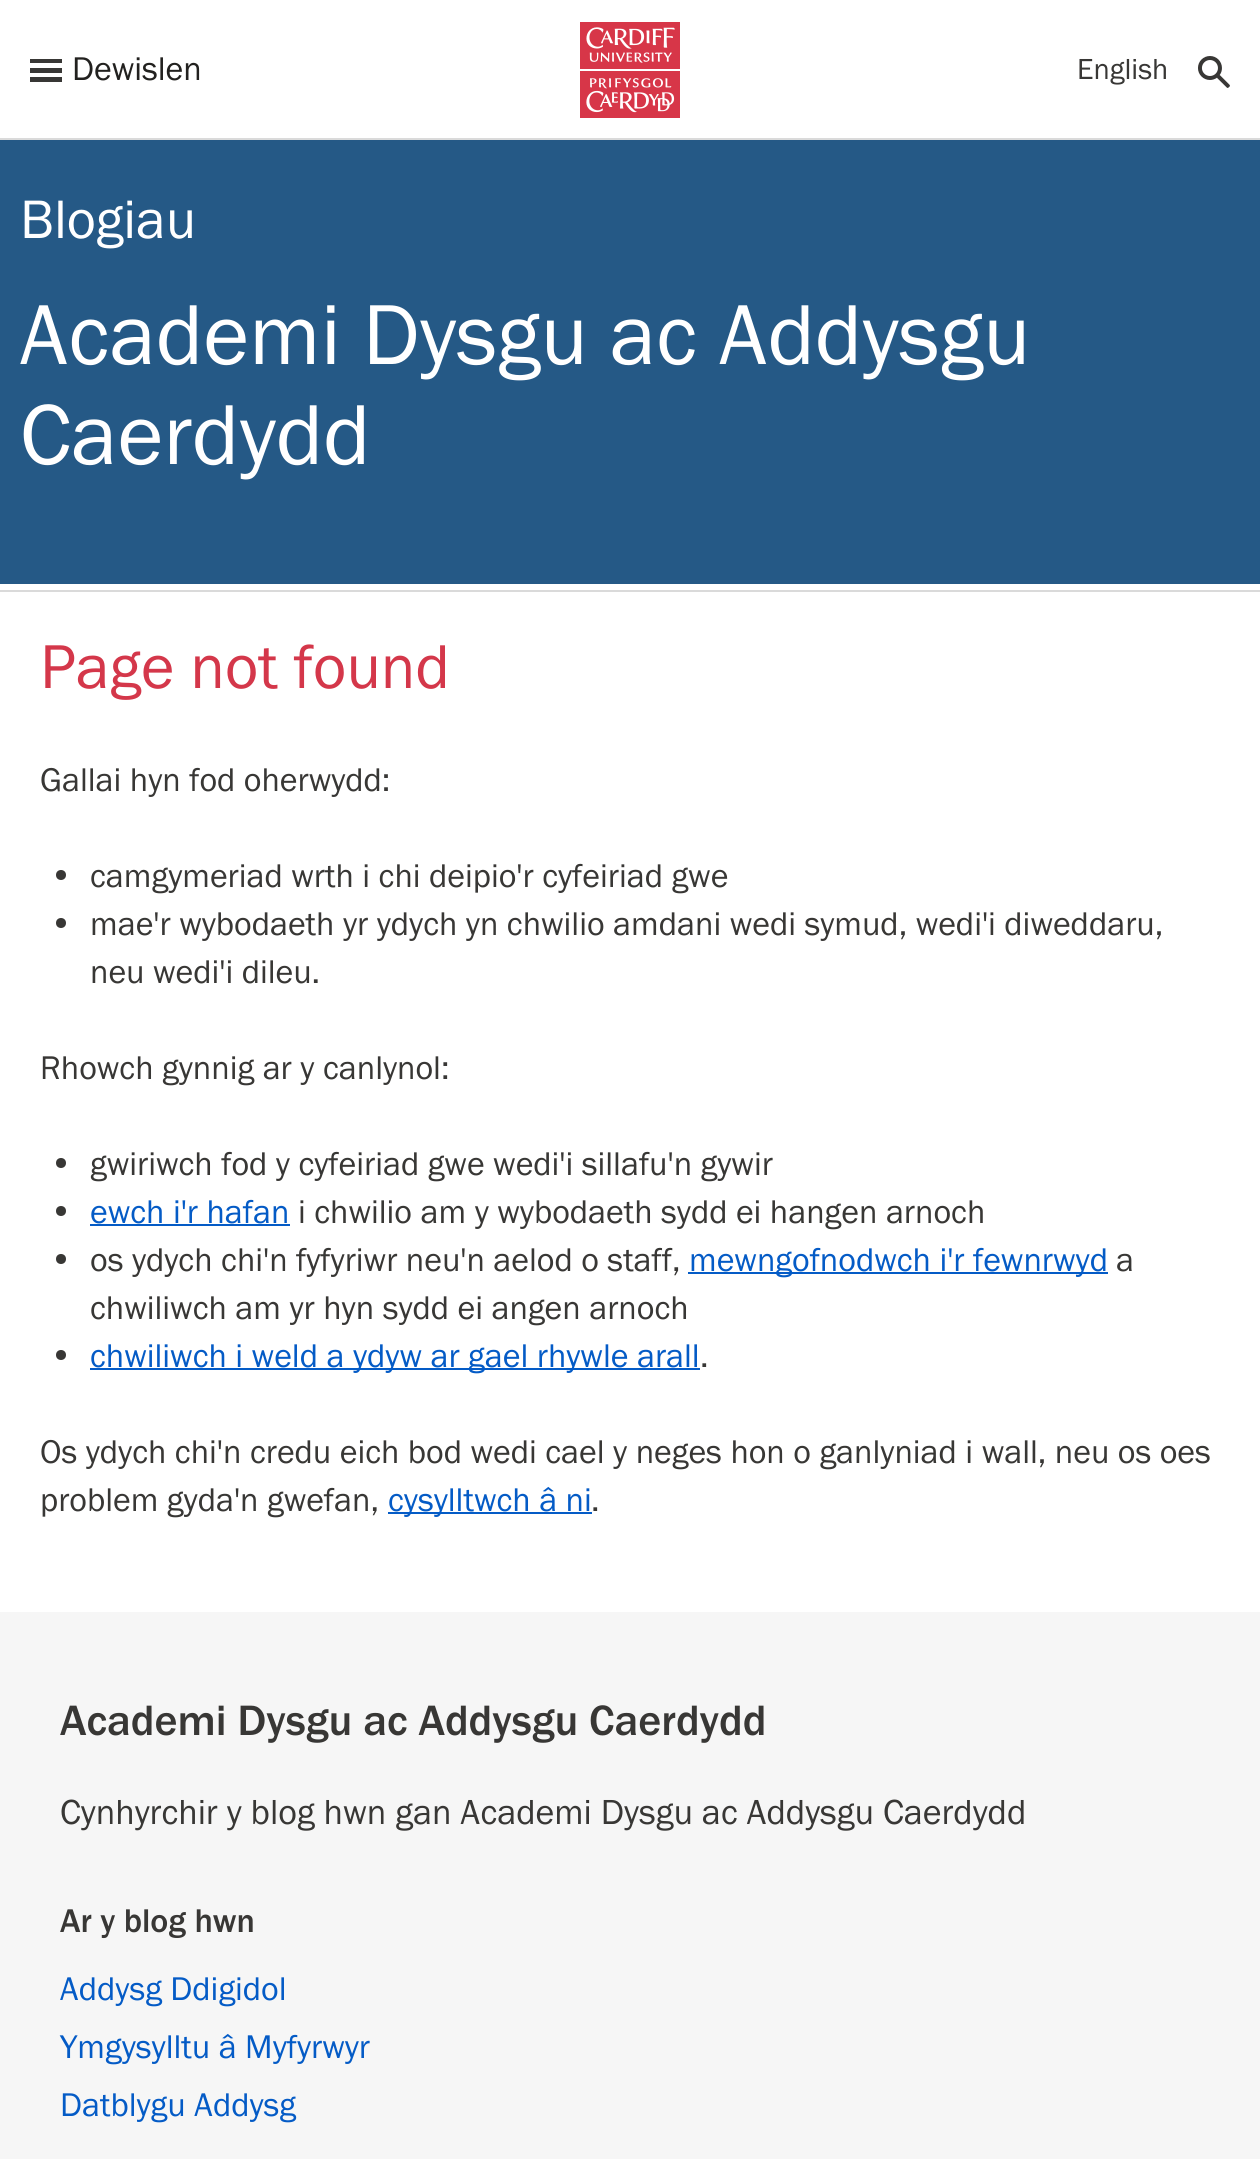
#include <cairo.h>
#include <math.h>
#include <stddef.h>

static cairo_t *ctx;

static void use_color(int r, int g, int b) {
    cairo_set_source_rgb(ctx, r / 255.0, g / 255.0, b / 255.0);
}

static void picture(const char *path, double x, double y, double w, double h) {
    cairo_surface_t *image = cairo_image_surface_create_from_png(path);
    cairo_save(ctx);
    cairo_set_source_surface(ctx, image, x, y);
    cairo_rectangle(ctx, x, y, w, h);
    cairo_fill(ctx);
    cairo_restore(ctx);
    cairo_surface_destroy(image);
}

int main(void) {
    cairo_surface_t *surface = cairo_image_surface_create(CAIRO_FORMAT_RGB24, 1260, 2159);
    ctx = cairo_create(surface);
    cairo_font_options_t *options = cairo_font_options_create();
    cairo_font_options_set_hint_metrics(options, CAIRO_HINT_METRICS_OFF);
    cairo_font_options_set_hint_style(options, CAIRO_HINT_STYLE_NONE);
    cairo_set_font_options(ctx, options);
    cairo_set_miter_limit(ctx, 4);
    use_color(255, 255, 255);
    cairo_paint(ctx);
    use_color(218, 218, 218);
    cairo_rectangle(ctx, 0, 138, 1260, 2);
    cairo_fill(ctx);
    use_color(56, 55, 53);
    cairo_rectangle(ctx, 30, 59, 32, 4);
    cairo_fill(ctx);
    cairo_rectangle(ctx, 30, 68, 32, 5);
    cairo_fill(ctx);
    cairo_rectangle(ctx, 30, 77, 32, 5);
    cairo_fill(ctx);
    cairo_select_font_face(ctx, "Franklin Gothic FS", CAIRO_FONT_SLANT_NORMAL, CAIRO_FONT_WEIGHT_NORMAL);
    cairo_set_font_size(ctx, 34);
    use_color(34, 33, 31);
    cairo_move_to(ctx, 72, 80);
    cairo_show_text(ctx, "Dewislen");
    picture("img1.png", 580, 22, 100, 96);
    cairo_set_font_size(ctx, 30);
    use_color(56, 55, 53);
    cairo_move_to(ctx, 1077, 79);
    cairo_show_text(ctx, "English");
    picture("img2.png", 1198, 56, 32, 32);
    use_color(37, 89, 134);
    cairo_rectangle(ctx, 0, 140, 1260, 444);
    cairo_fill(ctx);
    cairo_set_font_size(ctx, 56);
    use_color(255, 255, 255);
    cairo_move_to(ctx, 20, 238);
    cairo_show_text(ctx, "Blogiau");
    cairo_set_font_size(ctx, 88);
    cairo_move_to(ctx, 20, 364);
    cairo_show_text(ctx, "Academi Dysgu ac Addysgu");
    cairo_move_to(ctx, 20, 464);
    cairo_show_text(ctx, "Caerdydd");
    use_color(218, 218, 218);
    cairo_rectangle(ctx, 0, 590, 1260, 2);
    cairo_fill(ctx);
    cairo_set_font_size(ctx, 64);
    use_color(212, 55, 74);
    cairo_move_to(ctx, 40, 688);
    cairo_show_text(ctx, "Page not found");
    cairo_set_font_size(ctx, 34);
    use_color(56, 55, 53);
    cairo_move_to(ctx, 40, 791);
    cairo_show_text(ctx, "Gallai hyn fod oherwydd:");
    cairo_new_path(ctx);
    cairo_arc(ctx, 61, 875, 5, 0, 2 * M_PI);
    cairo_fill(ctx);
    cairo_move_to(ctx, 90, 887);
    cairo_show_text(ctx, "camgymeriad wrth i chi deipio'r cyfeiriad gwe");
    cairo_new_path(ctx);
    cairo_arc(ctx, 61, 923, 5, 0, 2 * M_PI);
    cairo_fill(ctx);
    cairo_move_to(ctx, 90, 935);
    cairo_show_text(ctx, "mae'r wybodaeth yr ydych yn chwilio amdani wedi symud, wedi'i diweddaru,");
    cairo_move_to(ctx, 90, 983);
    cairo_show_text(ctx, "neu wedi'i dileu.");
    cairo_move_to(ctx, 40, 1079);
    cairo_show_text(ctx, "Rhowch gynnig ar y canlynol:");
    cairo_new_path(ctx);
    cairo_arc(ctx, 61, 1163, 5, 0, 2 * M_PI);
    cairo_fill(ctx);
    cairo_move_to(ctx, 90, 1175);
    cairo_show_text(ctx, "gwiriwch fod y cyfeiriad gwe wedi'i sillafu'n gywir");
    cairo_new_path(ctx);
    cairo_arc(ctx, 61, 1211, 5, 0, 2 * M_PI);
    cairo_fill(ctx);
    use_color(4, 91, 198);
    cairo_move_to(ctx, 90, 1223);
    cairo_show_text(ctx, "ewch i'r hafan");
    cairo_rectangle(ctx, 90, 1224, 200, 2);
    cairo_fill(ctx);
    use_color(56, 55, 53);
    cairo_move_to(ctx, 298, 1223);
    cairo_show_text(ctx, "i chwilio am y wybodaeth sydd ei hangen arnoch");
    cairo_new_path(ctx);
    cairo_arc(ctx, 61, 1259, 5, 0, 2 * M_PI);
    cairo_fill(ctx);
    cairo_move_to(ctx, 90, 1271);
    cairo_show_text(ctx, "os ydych chi'n fyfyriwr neu'n aelod o staff,");
    use_color(4, 91, 198);
    cairo_rectangle(ctx, 688, 1272, 420, 2);
    cairo_fill(ctx);
    cairo_move_to(ctx, 689, 1271);
    cairo_show_text(ctx, "mewngofnodwch i'r fewnrwyd");
    use_color(56, 55, 53);
    cairo_move_to(ctx, 1116, 1271);
    cairo_show_text(ctx, "a");
    cairo_move_to(ctx, 90, 1319);
    cairo_show_text(ctx, "chwiliwch am yr hyn sydd ei angen arnoch");
    cairo_new_path(ctx);
    cairo_arc(ctx, 61, 1355, 5, 0, 2 * M_PI);
    cairo_fill(ctx);
    use_color(4, 91, 198);
    cairo_rectangle(ctx, 90, 1368, 610, 2);
    cairo_fill(ctx);
    cairo_move_to(ctx, 90, 1367);
    cairo_show_text(ctx, "chwiliwch i weld a ydyw ar gael rhywle arall");
    use_color(56, 55, 53);
    cairo_move_to(ctx, 700, 1367);
    cairo_show_text(ctx, ".");
    cairo_move_to(ctx, 40, 1463);
    cairo_show_text(ctx, "Os ydych chi'n credu eich bod wedi cael y neges hon o ganlyniad i wall, neu os oes");
    cairo_move_to(ctx, 40, 1511);
    cairo_show_text(ctx, "problem gyda'n gwefan,");
    use_color(4, 91, 198);
    cairo_rectangle(ctx, 388, 1512, 204, 2);
    cairo_fill(ctx);
    cairo_move_to(ctx, 388, 1511);
    cairo_show_text(ctx, "cysylltwch â ni");
    use_color(56, 55, 53);
    cairo_move_to(ctx, 591, 1511);
    cairo_show_text(ctx, ".");
    use_color(246, 246, 246);
    cairo_rectangle(ctx, 0, 1612, 1260, 547);
    cairo_fill(ctx);
    cairo_select_font_face(ctx, "Franklin Gothic FS Medium", CAIRO_FONT_SLANT_NORMAL, CAIRO_FONT_WEIGHT_NORMAL);
    cairo_set_font_size(ctx, 44);
    use_color(56, 55, 53);
    cairo_move_to(ctx, 60, 1735);
    cairo_show_text(ctx, "Academi Dysgu ac Addysgu Caerdydd");
    cairo_select_font_face(ctx, "Franklin Gothic FS", CAIRO_FONT_SLANT_NORMAL, CAIRO_FONT_WEIGHT_NORMAL);
    cairo_set_font_size(ctx, 36);
    cairo_move_to(ctx, 60, 1824);
    cairo_show_text(ctx, "Cynhyrchir y blog hwn gan Academi Dysgu ac Addysgu Caerdydd");
    cairo_select_font_face(ctx, "Franklin Gothic FS Medium", CAIRO_FONT_SLANT_NORMAL, CAIRO_FONT_WEIGHT_NORMAL);
    cairo_set_font_size(ctx, 34);
    cairo_move_to(ctx, 60, 1932);
    cairo_show_text(ctx, "Ar y blog hwn");
    cairo_select_font_face(ctx, "Franklin Gothic FS", CAIRO_FONT_SLANT_NORMAL, CAIRO_FONT_WEIGHT_NORMAL);
    use_color(4, 91, 198);
    cairo_move_to(ctx, 60, 2000);
    cairo_show_text(ctx, "Addysg Ddigidol");
    cairo_move_to(ctx, 60, 2058);
    cairo_show_text(ctx, "Ymgysylltu â Myfyrwyr");
    cairo_move_to(ctx, 60, 2116);
    cairo_show_text(ctx, "Datblygu Addysg");
    cairo_surface_write_to_png(surface, "result.png");
    cairo_font_options_destroy(options);
    cairo_destroy(ctx);
    cairo_surface_destroy(surface);
    return 0;
}
